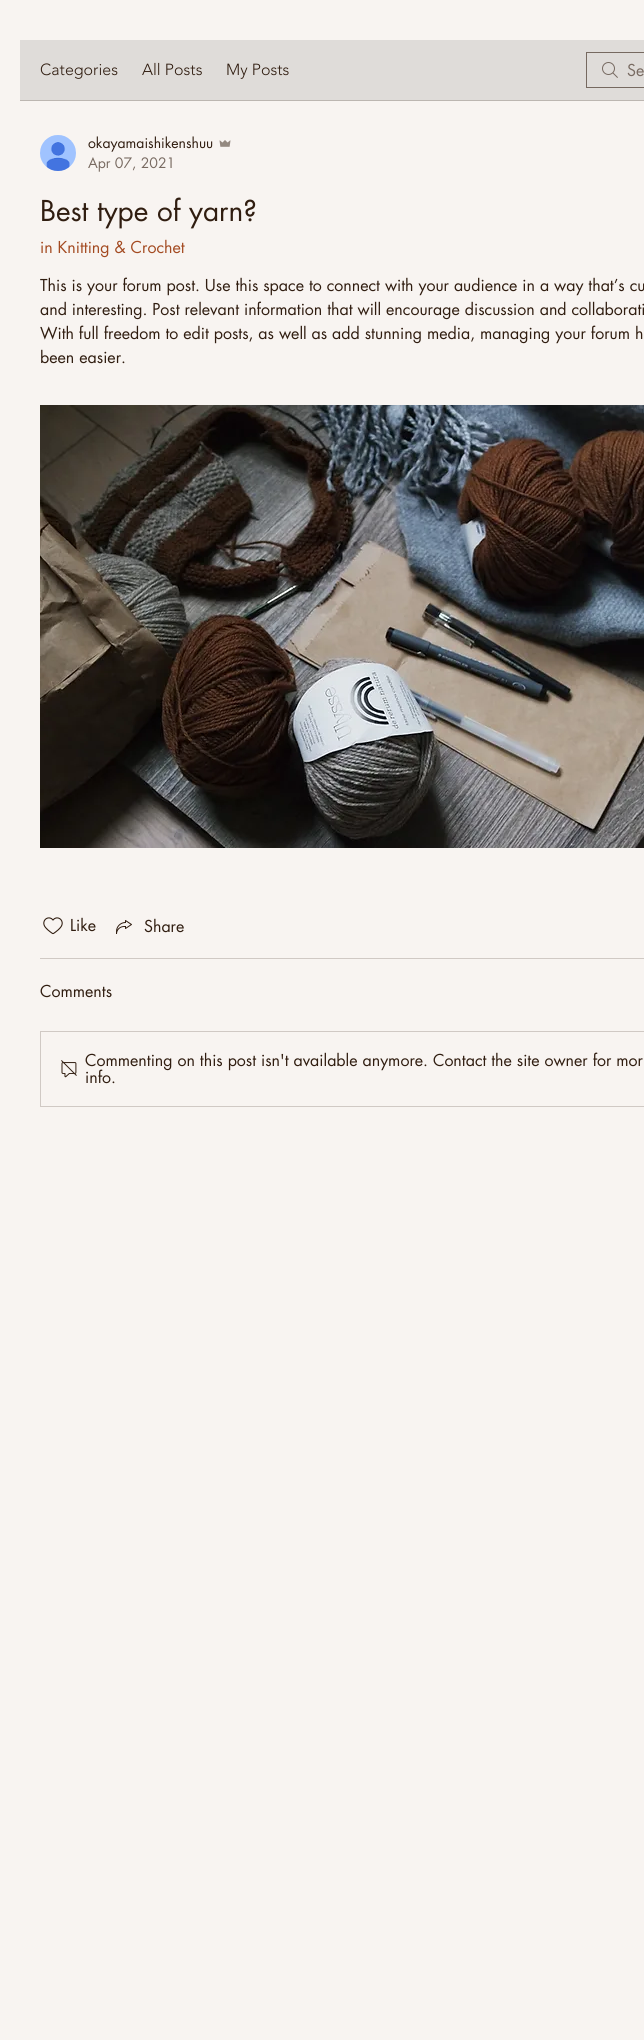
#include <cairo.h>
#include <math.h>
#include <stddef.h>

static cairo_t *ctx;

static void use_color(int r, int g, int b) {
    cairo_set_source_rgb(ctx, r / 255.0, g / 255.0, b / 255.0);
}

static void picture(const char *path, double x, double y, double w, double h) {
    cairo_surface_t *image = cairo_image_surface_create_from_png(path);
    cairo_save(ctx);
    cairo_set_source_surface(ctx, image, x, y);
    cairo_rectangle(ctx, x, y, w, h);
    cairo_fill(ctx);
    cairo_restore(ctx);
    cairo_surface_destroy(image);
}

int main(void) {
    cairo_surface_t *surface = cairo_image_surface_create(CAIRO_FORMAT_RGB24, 644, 2040);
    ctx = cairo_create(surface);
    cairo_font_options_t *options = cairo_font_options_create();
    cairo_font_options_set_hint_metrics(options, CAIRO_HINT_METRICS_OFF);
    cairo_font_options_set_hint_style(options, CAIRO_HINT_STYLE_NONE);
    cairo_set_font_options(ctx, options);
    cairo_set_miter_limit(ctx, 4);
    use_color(248, 244, 241);
    cairo_paint(ctx);
    use_color(223, 220, 217);
    cairo_rectangle(ctx, 20, 40, 624, 60);
    cairo_fill(ctx);
    use_color(188, 182, 177);
    cairo_rectangle(ctx, 20, 100, 624, 1);
    cairo_fill(ctx);
    cairo_select_font_face(ctx, "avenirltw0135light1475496 Light", CAIRO_FONT_SLANT_NORMAL, CAIRO_FONT_WEIGHT_NORMAL);
    cairo_set_font_size(ctx, 16);
    use_color(48, 29, 16);
    cairo_move_to(ctx, 40, 75);
    cairo_show_text(ctx, "Categories");
    cairo_move_to(ctx, 142, 75);
    cairo_show_text(ctx, "All Posts");
    cairo_move_to(ctx, 226, 75);
    cairo_show_text(ctx, "My Posts");
    picture("img1.png", 602, 62, 16, 16);
    cairo_rectangle(ctx, 586.5, 52.5, 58, 35);
    use_color(118, 105, 96);
    cairo_set_line_width(ctx, 1);
    cairo_stroke(ctx);
    cairo_select_font_face(ctx, "futura", CAIRO_FONT_SLANT_NORMAL, CAIRO_FONT_WEIGHT_NORMAL);
    use_color(120, 106, 97);
    cairo_move_to(ctx, 627, 76);
    cairo_show_text(ctx, "Se");
    picture("img2.png", 40, 135, 36, 36);
    cairo_set_font_size(ctx, 14);
    use_color(48, 29, 16);
    cairo_move_to(ctx, 88, 148);
    cairo_show_text(ctx, "okayamaishikenshuu");
    picture("img3.png", 219, 140, 12, 7);
    use_color(120, 106, 97);
    cairo_move_to(ctx, 88, 168);
    cairo_show_text(ctx, "Apr 07, 2021");
    cairo_set_font_size(ctx, 28);
    use_color(48, 29, 16);
    cairo_move_to(ctx, 40, 221);
    cairo_show_text(ctx, "Best type of yarn?");
    cairo_set_font_size(ctx, 16);
    use_color(163, 74, 33);
    cairo_move_to(ctx, 40, 253);
    cairo_show_text(ctx, "in Knitting & Crochet");
    use_color(48, 29, 16);
    cairo_move_to(ctx, 40, 291);
    cairo_show_text(ctx, "This is your forum post. Use this space to connect with your audience in a way that’s cu");
    cairo_move_to(ctx, 40, 315);
    cairo_show_text(ctx, "and interesting. Post relevant information that will encourage discussion and collaborati");
    cairo_move_to(ctx, 40, 339);
    cairo_show_text(ctx, "With full freedom to edit posts, as well as add stunning media, managing your forum h");
    cairo_move_to(ctx, 40, 363);
    cairo_show_text(ctx, "been easier.");
    picture("img4.png", 40, 405, 604, 443);
    picture("img5.png", 43, 917, 20, 18);
    cairo_move_to(ctx, 70, 931);
    cairo_show_text(ctx, "Like");
    picture("img6.png", 116, 920, 16, 14);
    cairo_move_to(ctx, 144, 932);
    cairo_show_text(ctx, "Share");
    use_color(208, 201, 196);
    cairo_rectangle(ctx, 40, 958, 604, 1);
    cairo_fill(ctx);
    use_color(48, 29, 16);
    cairo_move_to(ctx, 40, 997);
    cairo_show_text(ctx, "Comments");
    cairo_rectangle(ctx, 40.5, 1031.5, 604, 75);
    use_color(208, 201, 196);
    cairo_stroke(ctx);
    picture("img7.png", 61, 1060, 16, 18);
    use_color(48, 29, 16);
    cairo_move_to(ctx, 85, 1066);
    cairo_show_text(ctx, "Commenting on this post isn't available anymore. Contact the site owner for mor");
    cairo_move_to(ctx, 85, 1083);
    cairo_show_text(ctx, "info.");
    cairo_surface_write_to_png(surface, "result.png");
    cairo_font_options_destroy(options);
    cairo_destroy(ctx);
    cairo_surface_destroy(surface);
    return 0;
}
